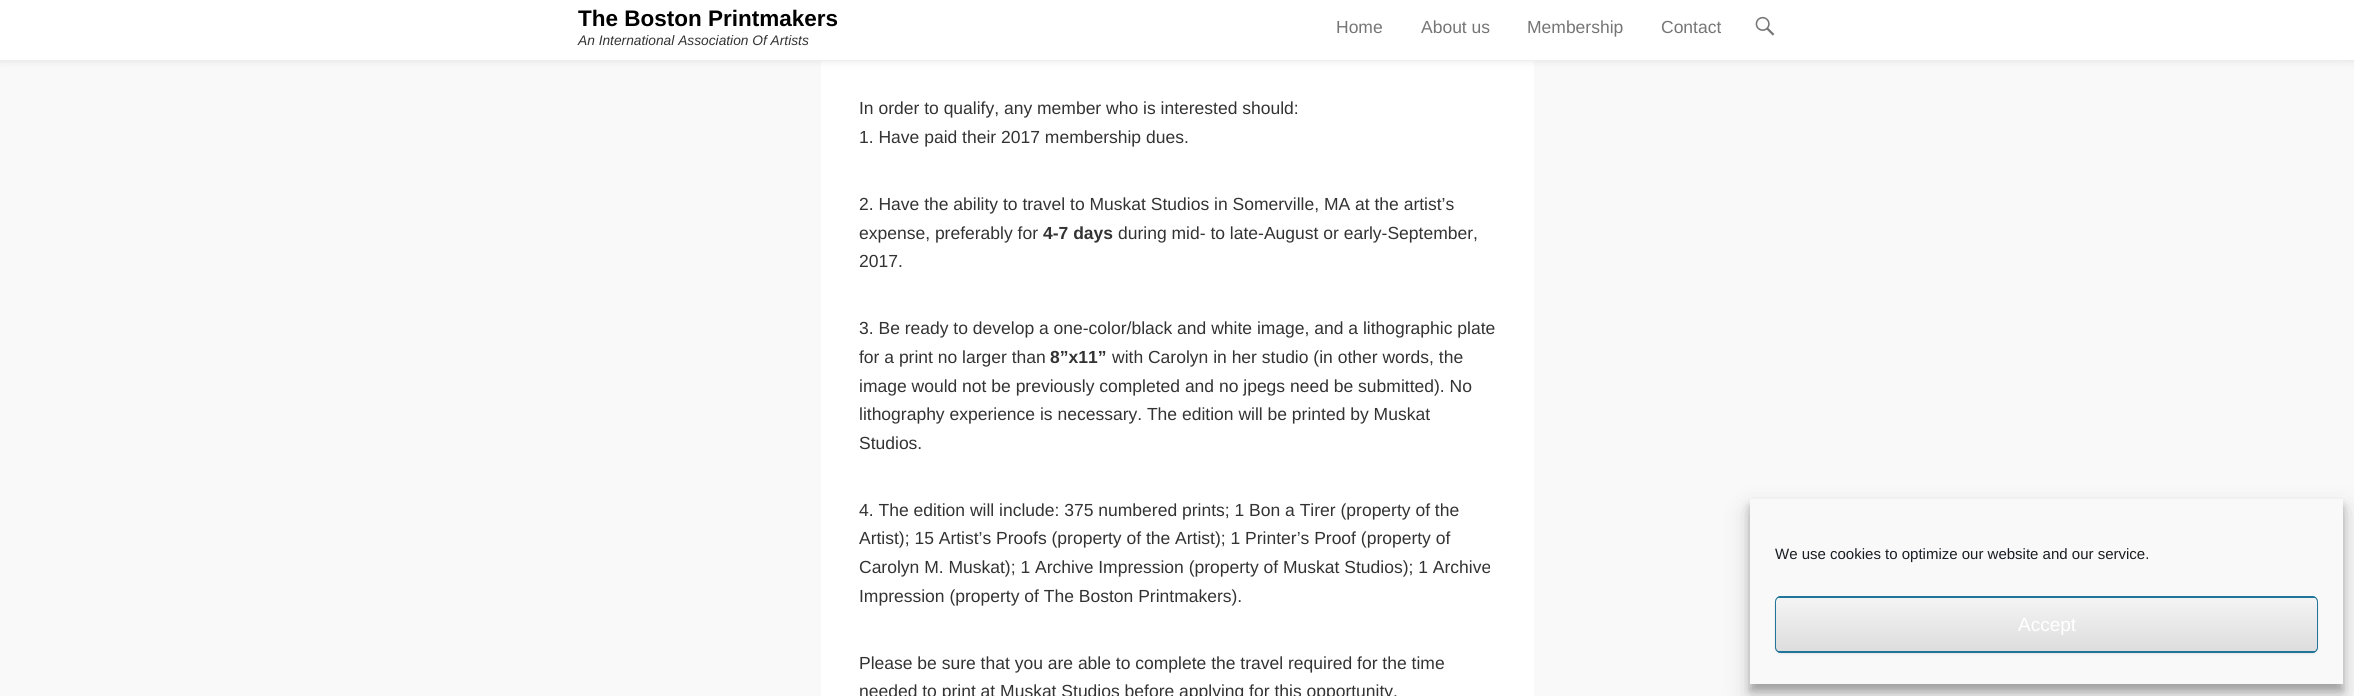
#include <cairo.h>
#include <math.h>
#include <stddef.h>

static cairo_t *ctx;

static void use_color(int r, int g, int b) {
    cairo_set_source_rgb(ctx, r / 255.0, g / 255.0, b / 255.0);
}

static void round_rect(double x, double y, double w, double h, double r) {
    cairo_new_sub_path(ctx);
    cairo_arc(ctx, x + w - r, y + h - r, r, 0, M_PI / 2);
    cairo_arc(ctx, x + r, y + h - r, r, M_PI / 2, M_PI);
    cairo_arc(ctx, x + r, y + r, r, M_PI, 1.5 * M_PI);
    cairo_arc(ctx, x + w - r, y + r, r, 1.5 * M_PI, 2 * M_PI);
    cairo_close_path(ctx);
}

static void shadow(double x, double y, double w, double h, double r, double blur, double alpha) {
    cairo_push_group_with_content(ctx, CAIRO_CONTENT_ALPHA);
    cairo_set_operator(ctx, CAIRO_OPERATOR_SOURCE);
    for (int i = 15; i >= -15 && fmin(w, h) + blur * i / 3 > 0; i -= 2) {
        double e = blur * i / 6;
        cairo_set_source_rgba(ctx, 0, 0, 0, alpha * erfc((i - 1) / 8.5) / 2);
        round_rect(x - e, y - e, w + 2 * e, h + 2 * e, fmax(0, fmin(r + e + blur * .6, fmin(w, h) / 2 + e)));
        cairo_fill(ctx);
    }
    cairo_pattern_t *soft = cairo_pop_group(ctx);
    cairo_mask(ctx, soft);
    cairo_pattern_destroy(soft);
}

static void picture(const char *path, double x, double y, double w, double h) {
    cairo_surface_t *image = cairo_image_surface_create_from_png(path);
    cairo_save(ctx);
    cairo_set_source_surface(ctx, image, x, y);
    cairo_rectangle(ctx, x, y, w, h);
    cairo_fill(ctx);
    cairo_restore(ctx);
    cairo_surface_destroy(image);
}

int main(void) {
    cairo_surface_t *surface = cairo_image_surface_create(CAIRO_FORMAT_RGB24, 2354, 696);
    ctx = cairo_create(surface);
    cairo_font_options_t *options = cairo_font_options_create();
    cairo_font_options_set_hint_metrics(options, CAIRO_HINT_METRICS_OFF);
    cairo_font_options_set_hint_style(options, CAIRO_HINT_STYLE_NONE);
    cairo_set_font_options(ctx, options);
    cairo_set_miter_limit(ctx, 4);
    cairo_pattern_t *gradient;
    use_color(249, 249, 249);
    cairo_paint(ctx);
    use_color(255, 255, 255);
    cairo_rectangle(ctx, 821, 61, 713, 635);
    cairo_fill(ctx);
    use_color(0, 0, 0);
    shadow(0, 0, 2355, 61, 0, 4.5, 0.1);
    use_color(255, 255, 255);
    cairo_rectangle(ctx, 0, 0, 2354, 60);
    cairo_fill(ctx);
    use_color(238, 238, 238);
    cairo_rectangle(ctx, 0, 60, 2339, 1);
    cairo_fill(ctx);
    cairo_select_font_face(ctx, "Liberation Sans", CAIRO_FONT_SLANT_NORMAL, CAIRO_FONT_WEIGHT_BOLD);
    cairo_set_font_size(ctx, 22.5);
    use_color(0, 0, 0);
    cairo_move_to(ctx, 578, 26);
    cairo_show_text(ctx, "The Boston Printmakers");
    cairo_select_font_face(ctx, "Liberation Sans", CAIRO_FONT_SLANT_ITALIC, CAIRO_FONT_WEIGHT_NORMAL);
    cairo_set_font_size(ctx, 13.75);
    use_color(51, 51, 51);
    cairo_move_to(ctx, 578, 45);
    cairo_show_text(ctx, "An International Association Of Artists");
    cairo_select_font_face(ctx, "Liberation Sans", CAIRO_FONT_SLANT_NORMAL, CAIRO_FONT_WEIGHT_NORMAL);
    cairo_set_font_size(ctx, 17.5);
    use_color(117, 117, 117);
    cairo_move_to(ctx, 1336, 33);
    cairo_show_text(ctx, "Home");
    cairo_move_to(ctx, 1421, 33);
    cairo_show_text(ctx, "About us");
    cairo_move_to(ctx, 1527, 33);
    cairo_show_text(ctx, "Membership");
    cairo_move_to(ctx, 1661, 33);
    cairo_show_text(ctx, "Contact");
    picture("img1.png", 1755, 16, 20, 20);
    use_color(51, 51, 51);
    cairo_move_to(ctx, 859, 114);
    cairo_show_text(ctx, "In order to qualify, any member who is interested should:");
    cairo_move_to(ctx, 859, 143);
    cairo_show_text(ctx, "1. Have paid their 2017 membership dues.");
    cairo_move_to(ctx, 859, 210);
    cairo_show_text(ctx, "2. Have the ability to travel to Muskat Studios in Somerville, MA at the artist’s");
    cairo_move_to(ctx, 859, 239);
    cairo_show_text(ctx, "expense, preferably for");
    cairo_select_font_face(ctx, "Liberation Sans", CAIRO_FONT_SLANT_NORMAL, CAIRO_FONT_WEIGHT_BOLD);
    cairo_move_to(ctx, 1043, 239);
    cairo_show_text(ctx, "4-7 days");
    cairo_select_font_face(ctx, "Liberation Sans", CAIRO_FONT_SLANT_NORMAL, CAIRO_FONT_WEIGHT_NORMAL);
    cairo_move_to(ctx, 1118, 239);
    cairo_show_text(ctx, "during mid- to late-August or early-September,");
    cairo_move_to(ctx, 859, 267);
    cairo_show_text(ctx, "2017.");
    cairo_move_to(ctx, 859, 334);
    cairo_show_text(ctx, "3. Be ready to develop a one-color/black and white image, and a lithographic plate");
    cairo_move_to(ctx, 859, 363);
    cairo_show_text(ctx, "for a print no larger than");
    cairo_select_font_face(ctx, "Liberation Sans", CAIRO_FONT_SLANT_NORMAL, CAIRO_FONT_WEIGHT_BOLD);
    cairo_move_to(ctx, 1050, 363);
    cairo_show_text(ctx, "8”x11”");
    cairo_select_font_face(ctx, "Liberation Sans", CAIRO_FONT_SLANT_NORMAL, CAIRO_FONT_WEIGHT_NORMAL);
    cairo_move_to(ctx, 1112, 363);
    cairo_show_text(ctx, "with Carolyn in her studio (in other words, the");
    cairo_move_to(ctx, 859, 392);
    cairo_show_text(ctx, "image would not be previously completed and no jpegs need be submitted). No");
    cairo_move_to(ctx, 859, 420);
    cairo_show_text(ctx, "lithography experience is necessary. The edition will be printed by Muskat");
    cairo_move_to(ctx, 859, 449);
    cairo_show_text(ctx, "Studios.");
    cairo_move_to(ctx, 859, 516);
    cairo_show_text(ctx, "4. The edition will include: 375 numbered prints; 1 Bon a Tirer (property of the");
    cairo_move_to(ctx, 859, 544);
    cairo_show_text(ctx, "Artist); 15 Artist’s Proofs (property of the Artist); 1 Printer’s Proof (property of");
    cairo_move_to(ctx, 859, 573);
    cairo_show_text(ctx, "Carolyn M. Muskat); 1 Archive Impression (property of Muskat Studios); 1 Archive");
    cairo_move_to(ctx, 859, 602);
    cairo_show_text(ctx, "Impression (property of The Boston Printmakers).");
    cairo_move_to(ctx, 859, 669);
    cairo_show_text(ctx, "Please be sure that you are able to complete the travel required for the time");
    cairo_move_to(ctx, 859, 697);
    cairo_show_text(ctx, "needed to print at Muskat Studios before applying for this opportunity.");
    use_color(0, 0, 0);
    shadow(1750, 506, 593, 185, 0, 4, 0.23);
    shadow(1750, 511, 593, 185, 0, 12.5, 0.19);
    use_color(249, 249, 249);
    cairo_rectangle(ctx, 1750, 499, 593, 185);
    cairo_fill(ctx);
    cairo_set_font_size(ctx, 15);
    use_color(25, 30, 35);
    cairo_move_to(ctx, 1775, 559);
    cairo_show_text(ctx, "We use cookies to optimize our website and our service.");
    use_color(64, 64, 64);
    shadow(1775, 598, 543, 56, 6, 1, 0.1);
    use_color(33, 117, 155);
    round_rect(1775, 596, 543, 57, 6);
    cairo_fill(ctx);
    cairo_save(ctx);
    round_rect(1775, 596, 543, 57, 6);
    cairo_clip(ctx);
    gradient = cairo_pattern_create_linear(2046, 598, 2046, 651);
    cairo_pattern_add_color_stop_rgba(gradient, 0, 0.957, 0.957, 0.957, 1);
    cairo_pattern_add_color_stop_rgba(gradient, 1, 0.867, 0.867, 0.867, 1);
    cairo_set_source(ctx, gradient);
    cairo_pattern_destroy(gradient);
    cairo_rectangle(ctx, 1775, 598, 543, 53);
    cairo_fill(ctx);
    cairo_restore(ctx);
    round_rect(1775.5, 596.5, 542, 56, 5.5);
    cairo_set_line_width(ctx, 1);
    cairo_stroke(ctx);
    cairo_set_font_size(ctx, 19);
    use_color(255, 255, 255);
    cairo_move_to(ctx, 2018, 631);
    cairo_show_text(ctx, "Accept");
    cairo_surface_write_to_png(surface, "result.png");
    cairo_font_options_destroy(options);
    cairo_destroy(ctx);
    cairo_surface_destroy(surface);
    return 0;
}
